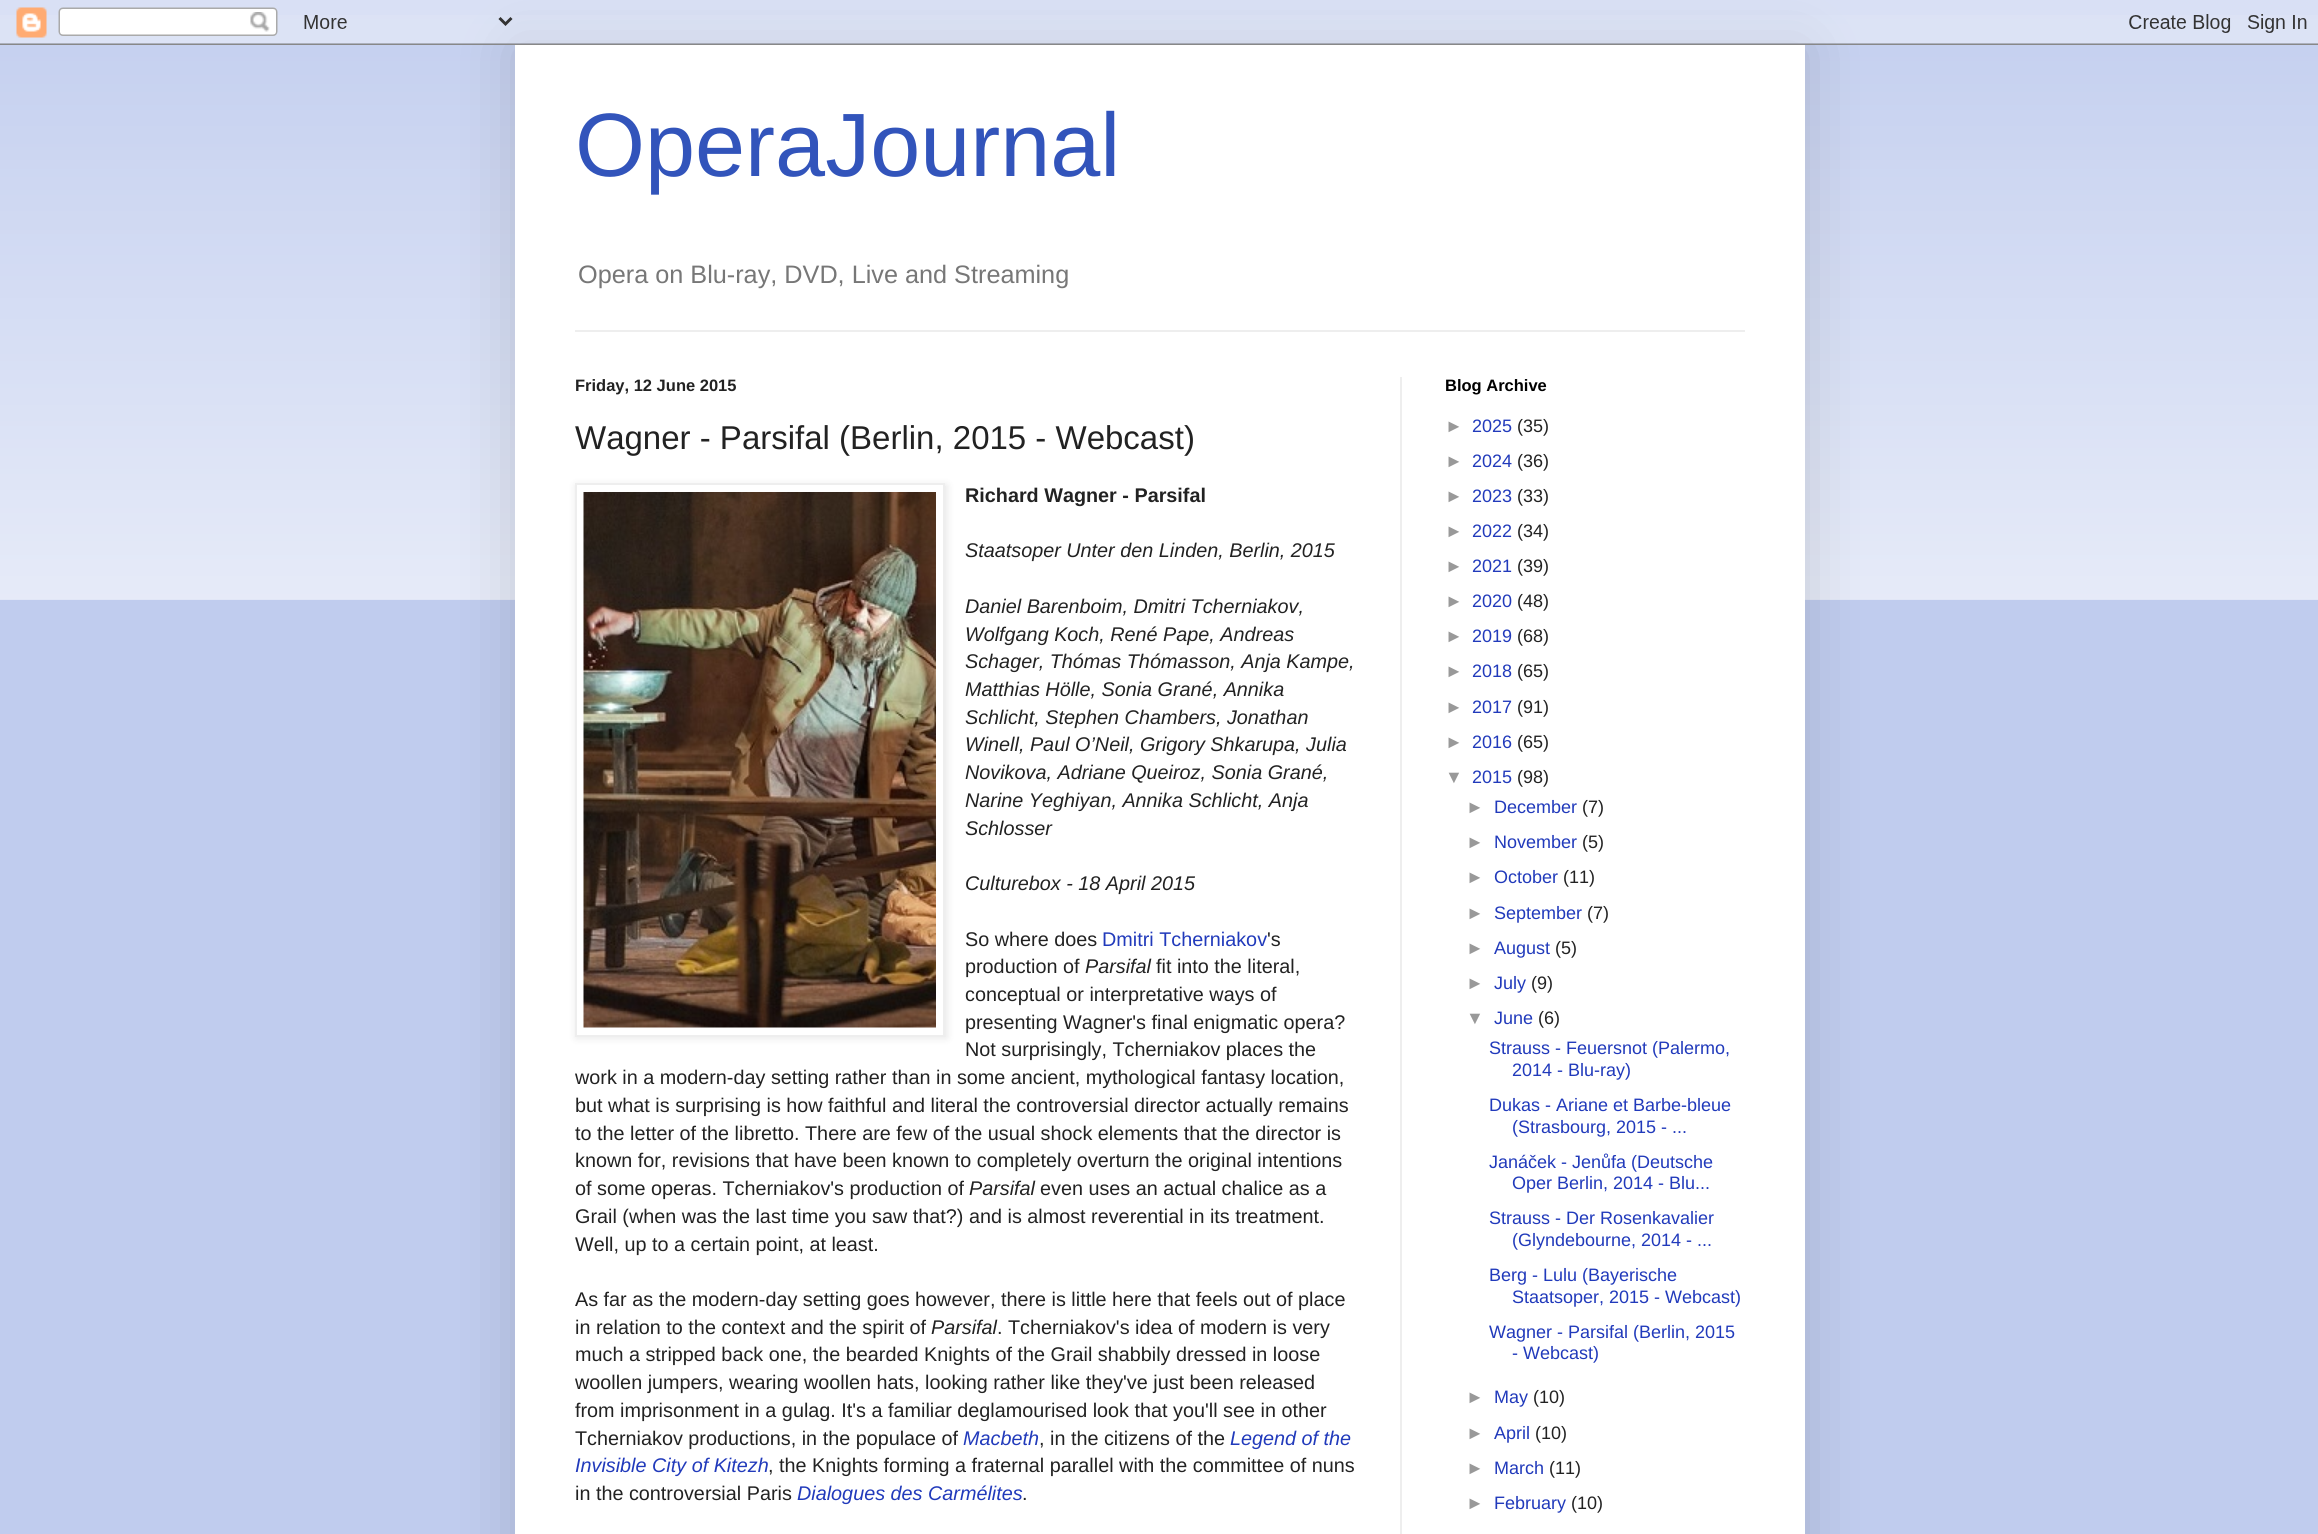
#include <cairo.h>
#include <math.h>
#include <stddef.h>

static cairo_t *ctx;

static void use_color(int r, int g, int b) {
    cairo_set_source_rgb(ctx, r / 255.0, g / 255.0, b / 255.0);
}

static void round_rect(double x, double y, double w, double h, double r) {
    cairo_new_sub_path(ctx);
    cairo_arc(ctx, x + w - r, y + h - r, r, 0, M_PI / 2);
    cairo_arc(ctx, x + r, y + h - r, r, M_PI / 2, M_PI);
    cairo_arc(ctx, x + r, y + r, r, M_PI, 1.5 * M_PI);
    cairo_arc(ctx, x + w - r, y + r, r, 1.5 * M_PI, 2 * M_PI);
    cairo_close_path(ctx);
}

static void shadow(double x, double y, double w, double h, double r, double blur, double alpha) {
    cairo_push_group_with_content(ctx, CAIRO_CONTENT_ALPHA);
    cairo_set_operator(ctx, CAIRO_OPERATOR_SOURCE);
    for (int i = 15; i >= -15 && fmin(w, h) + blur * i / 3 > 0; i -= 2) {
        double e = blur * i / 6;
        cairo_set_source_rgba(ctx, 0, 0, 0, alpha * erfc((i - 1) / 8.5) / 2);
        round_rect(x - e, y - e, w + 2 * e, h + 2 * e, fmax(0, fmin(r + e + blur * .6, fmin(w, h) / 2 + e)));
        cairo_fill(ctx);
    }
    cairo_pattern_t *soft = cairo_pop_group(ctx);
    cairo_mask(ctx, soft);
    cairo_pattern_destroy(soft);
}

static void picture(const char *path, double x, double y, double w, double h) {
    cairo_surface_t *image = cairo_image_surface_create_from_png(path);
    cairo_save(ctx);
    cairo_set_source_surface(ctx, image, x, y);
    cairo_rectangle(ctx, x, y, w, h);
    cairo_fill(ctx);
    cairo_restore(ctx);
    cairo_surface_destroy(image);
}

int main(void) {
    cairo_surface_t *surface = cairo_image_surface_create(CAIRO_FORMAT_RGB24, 2318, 1534);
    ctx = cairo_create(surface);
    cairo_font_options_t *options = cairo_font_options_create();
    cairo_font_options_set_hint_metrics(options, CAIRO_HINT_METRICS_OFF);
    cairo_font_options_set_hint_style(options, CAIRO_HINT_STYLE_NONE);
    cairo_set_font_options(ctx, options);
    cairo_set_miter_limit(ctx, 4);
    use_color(192, 204, 238);
    cairo_paint(ctx);
    picture("img2.png", 0, 15, 2318, 585);
    use_color(0, 0, 0);
    shadow(515, 45, 1290, 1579, 0, 30, 0.15);
    picture("img1.png", 0, 0, 2318, 45);
    use_color(255, 255, 255);
    cairo_rectangle(ctx, 515, 45, 1290, 1489);
    cairo_fill(ctx);
    cairo_select_font_face(ctx, "Liberation Sans", CAIRO_FONT_SLANT_NORMAL, CAIRO_FONT_WEIGHT_NORMAL);
    cairo_set_font_size(ctx, 90);
    use_color(50, 84, 187);
    cairo_move_to(ctx, 575, 176);
    cairo_show_text(ctx, "OperaJournal");
    cairo_set_font_size(ctx, 25.25);
    use_color(119, 119, 119);
    cairo_move_to(ctx, 578, 283);
    cairo_show_text(ctx, "Opera on Blu-ray, DVD, Live and Streaming");
    use_color(238, 238, 238);
    cairo_rectangle(ctx, 575, 330, 1170, 2);
    cairo_fill(ctx);
    cairo_rectangle(ctx, 1400, 377, 2, 1157);
    cairo_fill(ctx);
    cairo_select_font_face(ctx, "Liberation Sans", CAIRO_FONT_SLANT_NORMAL, CAIRO_FONT_WEIGHT_BOLD);
    cairo_set_font_size(ctx, 16.5);
    use_color(34, 34, 34);
    cairo_move_to(ctx, 575, 391);
    cairo_show_text(ctx, "Friday, 12 June 2015");
    cairo_select_font_face(ctx, "Liberation Sans", CAIRO_FONT_SLANT_NORMAL, CAIRO_FONT_WEIGHT_NORMAL);
    cairo_set_font_size(ctx, 33);
    cairo_move_to(ctx, 575, 449);
    cairo_show_text(ctx, "Wagner - Parsifal (Berlin, 2015 - Webcast)");
    use_color(0, 0, 0);
    shadow(576, 485, 371, 553, 0, 4, 0.1);
    use_color(255, 255, 255);
    cairo_rectangle(ctx, 576, 484, 368, 552);
    cairo_fill_preserve(ctx);
    use_color(238, 238, 238);
    cairo_stroke(ctx);
    picture("img3.png", 583, 492, 353, 536);
    cairo_select_font_face(ctx, "Liberation Sans", CAIRO_FONT_SLANT_NORMAL, CAIRO_FONT_WEIGHT_BOLD);
    cairo_set_font_size(ctx, 19.8);
    use_color(34, 34, 34);
    cairo_move_to(ctx, 965, 502);
    cairo_show_text(ctx, "Richard Wagner - Parsifal");
    cairo_select_font_face(ctx, "Liberation Sans", CAIRO_FONT_SLANT_ITALIC, CAIRO_FONT_WEIGHT_NORMAL);
    cairo_move_to(ctx, 965, 557);
    cairo_show_text(ctx, "Staatsoper Unter den Linden, Berlin, 2015");
    cairo_move_to(ctx, 965, 613);
    cairo_show_text(ctx, "Daniel Barenboim, Dmitri Tcherniakov,");
    cairo_move_to(ctx, 965, 641);
    cairo_show_text(ctx, "Wolfgang Koch, René Pape, Andreas");
    cairo_move_to(ctx, 965, 668);
    cairo_show_text(ctx, "Schager, Thómas Thómasson, Anja Kampe,");
    cairo_move_to(ctx, 965, 696);
    cairo_show_text(ctx, "Matthias Hölle, Sonia Grané, Annika");
    cairo_move_to(ctx, 965, 724);
    cairo_show_text(ctx, "Schlicht, Stephen Chambers, Jonathan");
    cairo_move_to(ctx, 965, 751);
    cairo_show_text(ctx, "Winell, Paul O’Neil, Grigory Shkarupa, Julia");
    cairo_move_to(ctx, 965, 779);
    cairo_show_text(ctx, "Novikova, Adriane Queiroz, Sonia Grané,");
    cairo_move_to(ctx, 965, 807);
    cairo_show_text(ctx, "Narine Yeghiyan, Annika Schlicht, Anja");
    cairo_move_to(ctx, 965, 835);
    cairo_show_text(ctx, "Schlosser");
    cairo_move_to(ctx, 965, 890);
    cairo_show_text(ctx, "Culturebox - 18 April 2015");
    cairo_select_font_face(ctx, "Liberation Sans", CAIRO_FONT_SLANT_NORMAL, CAIRO_FONT_WEIGHT_NORMAL);
    cairo_move_to(ctx, 965, 946);
    cairo_show_text(ctx, "So where does");
    use_color(33, 58, 187);
    cairo_move_to(ctx, 1102, 946);
    cairo_show_text(ctx, "Dmitri Tcherniakov");
    use_color(34, 34, 34);
    cairo_move_to(ctx, 1267, 946);
    cairo_show_text(ctx, "'s");
    cairo_move_to(ctx, 965, 973);
    cairo_show_text(ctx, "production of");
    cairo_select_font_face(ctx, "Liberation Sans", CAIRO_FONT_SLANT_ITALIC, CAIRO_FONT_WEIGHT_NORMAL);
    cairo_move_to(ctx, 1085, 973);
    cairo_show_text(ctx, "Parsifal");
    cairo_select_font_face(ctx, "Liberation Sans", CAIRO_FONT_SLANT_NORMAL, CAIRO_FONT_WEIGHT_NORMAL);
    cairo_move_to(ctx, 1156, 973);
    cairo_show_text(ctx, "fit into the literal,");
    cairo_move_to(ctx, 965, 1001);
    cairo_show_text(ctx, "conceptual or interpretative ways of");
    cairo_move_to(ctx, 965, 1029);
    cairo_show_text(ctx, "presenting Wagner's final enigmatic opera?");
    cairo_move_to(ctx, 965, 1056);
    cairo_show_text(ctx, "Not surprisingly, Tcherniakov places the");
    cairo_move_to(ctx, 575, 1084);
    cairo_show_text(ctx, "work in a modern-day setting rather than in some ancient, mythological fantasy location,");
    cairo_move_to(ctx, 575, 1112);
    cairo_show_text(ctx, "but what is surprising is how faithful and literal the controversial director actually remains");
    cairo_move_to(ctx, 575, 1140);
    cairo_show_text(ctx, "to the letter of the libretto. There are few of the usual shock elements that the director is");
    cairo_move_to(ctx, 575, 1167);
    cairo_show_text(ctx, "known for, revisions that have been known to completely overturn the original intentions");
    cairo_move_to(ctx, 575, 1195);
    cairo_show_text(ctx, "of some operas. Tcherniakov's production of");
    cairo_select_font_face(ctx, "Liberation Sans", CAIRO_FONT_SLANT_ITALIC, CAIRO_FONT_WEIGHT_NORMAL);
    cairo_move_to(ctx, 969, 1195);
    cairo_show_text(ctx, "Parsifal");
    cairo_select_font_face(ctx, "Liberation Sans", CAIRO_FONT_SLANT_NORMAL, CAIRO_FONT_WEIGHT_NORMAL);
    cairo_move_to(ctx, 1040, 1195);
    cairo_show_text(ctx, "even uses an actual chalice as a");
    cairo_move_to(ctx, 575, 1223);
    cairo_show_text(ctx, "Grail (when was the last time you saw that?) and is almost reverential in its treatment.");
    cairo_move_to(ctx, 575, 1251);
    cairo_show_text(ctx, "Well, up to a certain point, at least.");
    cairo_move_to(ctx, 575, 1306);
    cairo_show_text(ctx, "As far as the modern-day setting goes however, there is little here that feels out of place");
    cairo_move_to(ctx, 575, 1334);
    cairo_show_text(ctx, "in relation to the context and the spirit of");
    cairo_select_font_face(ctx, "Liberation Sans", CAIRO_FONT_SLANT_ITALIC, CAIRO_FONT_WEIGHT_NORMAL);
    cairo_move_to(ctx, 931, 1334);
    cairo_show_text(ctx, "Parsifal");
    cairo_select_font_face(ctx, "Liberation Sans", CAIRO_FONT_SLANT_NORMAL, CAIRO_FONT_WEIGHT_NORMAL);
    cairo_move_to(ctx, 997, 1334);
    cairo_show_text(ctx, ". Tcherniakov's idea of modern is very");
    cairo_move_to(ctx, 575, 1361);
    cairo_show_text(ctx, "much a stripped back one, the bearded Knights of the Grail shabbily dressed in loose");
    cairo_move_to(ctx, 575, 1389);
    cairo_show_text(ctx, "woollen jumpers, wearing woollen hats, looking rather like they've just been released");
    cairo_move_to(ctx, 575, 1417);
    cairo_show_text(ctx, "from imprisonment in a gulag. It's a familiar deglamourised look that you'll see in other");
    cairo_move_to(ctx, 575, 1445);
    cairo_show_text(ctx, "Tcherniakov productions, in the populace of");
    cairo_select_font_face(ctx, "Liberation Sans", CAIRO_FONT_SLANT_ITALIC, CAIRO_FONT_WEIGHT_NORMAL);
    use_color(33, 58, 187);
    cairo_move_to(ctx, 963, 1445);
    cairo_show_text(ctx, "Macbeth");
    cairo_select_font_face(ctx, "Liberation Sans", CAIRO_FONT_SLANT_NORMAL, CAIRO_FONT_WEIGHT_NORMAL);
    use_color(34, 34, 34);
    cairo_move_to(ctx, 1039, 1445);
    cairo_show_text(ctx, ", in the citizens of the");
    cairo_select_font_face(ctx, "Liberation Sans", CAIRO_FONT_SLANT_ITALIC, CAIRO_FONT_WEIGHT_NORMAL);
    use_color(33, 58, 187);
    cairo_move_to(ctx, 1230, 1445);
    cairo_show_text(ctx, "Legend of the");
    cairo_move_to(ctx, 575, 1472);
    cairo_show_text(ctx, "Invisible City of Kitezh");
    cairo_select_font_face(ctx, "Liberation Sans", CAIRO_FONT_SLANT_NORMAL, CAIRO_FONT_WEIGHT_NORMAL);
    use_color(34, 34, 34);
    cairo_move_to(ctx, 768, 1472);
    cairo_show_text(ctx, ", the Knights forming a fraternal parallel with the committee of nuns");
    cairo_move_to(ctx, 575, 1500);
    cairo_show_text(ctx, "in the controversial Paris");
    cairo_select_font_face(ctx, "Liberation Sans", CAIRO_FONT_SLANT_ITALIC, CAIRO_FONT_WEIGHT_NORMAL);
    use_color(33, 58, 187);
    cairo_move_to(ctx, 797, 1500);
    cairo_show_text(ctx, "Dialogues des Carmélites");
    cairo_select_font_face(ctx, "Liberation Sans", CAIRO_FONT_SLANT_NORMAL, CAIRO_FONT_WEIGHT_NORMAL);
    use_color(34, 34, 34);
    cairo_move_to(ctx, 1022, 1500);
    cairo_show_text(ctx, ".");
    cairo_select_font_face(ctx, "Liberation Sans", CAIRO_FONT_SLANT_NORMAL, CAIRO_FONT_WEIGHT_BOLD);
    cairo_set_font_size(ctx, 16.5);
    use_color(0, 0, 0);
    cairo_move_to(ctx, 1445, 391);
    cairo_show_text(ctx, "Blog Archive");
    cairo_select_font_face(ctx, "Liberation Sans", CAIRO_FONT_SLANT_NORMAL, CAIRO_FONT_WEIGHT_NORMAL);
    cairo_set_font_size(ctx, 18);
    use_color(153, 153, 153);
    cairo_move_to(ctx, 1445, 432);
    cairo_show_text(ctx, "►");
    use_color(33, 58, 187);
    cairo_move_to(ctx, 1472, 432);
    cairo_show_text(ctx, "2025");
    use_color(34, 34, 34);
    cairo_move_to(ctx, 1517, 432);
    cairo_show_text(ctx, "(35)");
    use_color(153, 153, 153);
    cairo_move_to(ctx, 1445, 467);
    cairo_show_text(ctx, "►");
    use_color(33, 58, 187);
    cairo_move_to(ctx, 1472, 467);
    cairo_show_text(ctx, "2024");
    use_color(34, 34, 34);
    cairo_move_to(ctx, 1517, 467);
    cairo_show_text(ctx, "(36)");
    use_color(153, 153, 153);
    cairo_move_to(ctx, 1445, 502);
    cairo_show_text(ctx, "►");
    use_color(33, 58, 187);
    cairo_move_to(ctx, 1472, 502);
    cairo_show_text(ctx, "2023");
    use_color(34, 34, 34);
    cairo_move_to(ctx, 1517, 502);
    cairo_show_text(ctx, "(33)");
    use_color(153, 153, 153);
    cairo_move_to(ctx, 1445, 537);
    cairo_show_text(ctx, "►");
    use_color(33, 58, 187);
    cairo_move_to(ctx, 1472, 537);
    cairo_show_text(ctx, "2022");
    use_color(34, 34, 34);
    cairo_move_to(ctx, 1517, 537);
    cairo_show_text(ctx, "(34)");
    use_color(153, 153, 153);
    cairo_move_to(ctx, 1445, 572);
    cairo_show_text(ctx, "►");
    use_color(33, 58, 187);
    cairo_move_to(ctx, 1472, 572);
    cairo_show_text(ctx, "2021");
    use_color(34, 34, 34);
    cairo_move_to(ctx, 1517, 572);
    cairo_show_text(ctx, "(39)");
    use_color(153, 153, 153);
    cairo_move_to(ctx, 1445, 607);
    cairo_show_text(ctx, "►");
    use_color(33, 58, 187);
    cairo_move_to(ctx, 1472, 607);
    cairo_show_text(ctx, "2020");
    use_color(34, 34, 34);
    cairo_move_to(ctx, 1517, 607);
    cairo_show_text(ctx, "(48)");
    use_color(153, 153, 153);
    cairo_move_to(ctx, 1445, 642);
    cairo_show_text(ctx, "►");
    use_color(33, 58, 187);
    cairo_move_to(ctx, 1472, 642);
    cairo_show_text(ctx, "2019");
    use_color(34, 34, 34);
    cairo_move_to(ctx, 1517, 642);
    cairo_show_text(ctx, "(68)");
    use_color(153, 153, 153);
    cairo_move_to(ctx, 1445, 677);
    cairo_show_text(ctx, "►");
    use_color(33, 58, 187);
    cairo_move_to(ctx, 1472, 677);
    cairo_show_text(ctx, "2018");
    use_color(34, 34, 34);
    cairo_move_to(ctx, 1517, 677);
    cairo_show_text(ctx, "(65)");
    use_color(153, 153, 153);
    cairo_move_to(ctx, 1445, 713);
    cairo_show_text(ctx, "►");
    use_color(33, 58, 187);
    cairo_move_to(ctx, 1472, 713);
    cairo_show_text(ctx, "2017");
    use_color(34, 34, 34);
    cairo_move_to(ctx, 1517, 713);
    cairo_show_text(ctx, "(91)");
    use_color(153, 153, 153);
    cairo_move_to(ctx, 1445, 748);
    cairo_show_text(ctx, "►");
    use_color(33, 58, 187);
    cairo_move_to(ctx, 1472, 748);
    cairo_show_text(ctx, "2016");
    use_color(34, 34, 34);
    cairo_move_to(ctx, 1517, 748);
    cairo_show_text(ctx, "(65)");
    use_color(153, 153, 153);
    cairo_move_to(ctx, 1445, 783);
    cairo_show_text(ctx, "▼");
    use_color(33, 58, 187);
    cairo_move_to(ctx, 1472, 783);
    cairo_show_text(ctx, "2015");
    use_color(34, 34, 34);
    cairo_move_to(ctx, 1517, 783);
    cairo_show_text(ctx, "(98)");
    use_color(153, 153, 153);
    cairo_move_to(ctx, 1466, 813);
    cairo_show_text(ctx, "►");
    use_color(33, 58, 187);
    cairo_move_to(ctx, 1494, 813);
    cairo_show_text(ctx, "December");
    use_color(34, 34, 34);
    cairo_move_to(ctx, 1582, 813);
    cairo_show_text(ctx, "(7)");
    use_color(153, 153, 153);
    cairo_move_to(ctx, 1466, 848);
    cairo_show_text(ctx, "►");
    use_color(33, 58, 187);
    cairo_move_to(ctx, 1494, 848);
    cairo_show_text(ctx, "November");
    use_color(34, 34, 34);
    cairo_move_to(ctx, 1582, 848);
    cairo_show_text(ctx, "(5)");
    use_color(153, 153, 153);
    cairo_move_to(ctx, 1466, 883);
    cairo_show_text(ctx, "►");
    use_color(33, 58, 187);
    cairo_move_to(ctx, 1494, 883);
    cairo_show_text(ctx, "October");
    use_color(34, 34, 34);
    cairo_move_to(ctx, 1563, 883);
    cairo_show_text(ctx, "(11)");
    use_color(153, 153, 153);
    cairo_move_to(ctx, 1466, 919);
    cairo_show_text(ctx, "►");
    use_color(33, 58, 187);
    cairo_move_to(ctx, 1494, 919);
    cairo_show_text(ctx, "September");
    use_color(34, 34, 34);
    cairo_move_to(ctx, 1587, 919);
    cairo_show_text(ctx, "(7)");
    use_color(153, 153, 153);
    cairo_move_to(ctx, 1466, 954);
    cairo_show_text(ctx, "►");
    use_color(33, 58, 187);
    cairo_move_to(ctx, 1494, 954);
    cairo_show_text(ctx, "August");
    use_color(34, 34, 34);
    cairo_move_to(ctx, 1555, 954);
    cairo_show_text(ctx, "(5)");
    use_color(153, 153, 153);
    cairo_move_to(ctx, 1466, 989);
    cairo_show_text(ctx, "►");
    use_color(33, 58, 187);
    cairo_move_to(ctx, 1494, 989);
    cairo_show_text(ctx, "July");
    use_color(34, 34, 34);
    cairo_move_to(ctx, 1531, 989);
    cairo_show_text(ctx, "(9)");
    use_color(153, 153, 153);
    cairo_move_to(ctx, 1466, 1024);
    cairo_show_text(ctx, "▼");
    use_color(33, 58, 187);
    cairo_move_to(ctx, 1494, 1024);
    cairo_show_text(ctx, "June");
    use_color(34, 34, 34);
    cairo_move_to(ctx, 1538, 1024);
    cairo_show_text(ctx, "(6)");
    use_color(33, 58, 187);
    cairo_move_to(ctx, 1489, 1054);
    cairo_show_text(ctx, "Strauss - Feuersnot (Palermo,");
    cairo_move_to(ctx, 1512, 1076);
    cairo_show_text(ctx, "2014 - Blu-ray)");
    cairo_move_to(ctx, 1489, 1111);
    cairo_show_text(ctx, "Dukas - Ariane et Barbe-bleue");
    cairo_move_to(ctx, 1512, 1133);
    cairo_show_text(ctx, "(Strasbourg, 2015 - ...");
    cairo_move_to(ctx, 1489, 1168);
    cairo_show_text(ctx, "Janáček - Jenůfa (Deutsche");
    cairo_move_to(ctx, 1512, 1189);
    cairo_show_text(ctx, "Oper Berlin, 2014 - Blu...");
    cairo_move_to(ctx, 1489, 1224);
    cairo_show_text(ctx, "Strauss - Der Rosenkavalier");
    cairo_move_to(ctx, 1512, 1246);
    cairo_show_text(ctx, "(Glyndebourne, 2014 - ...");
    cairo_move_to(ctx, 1489, 1281);
    cairo_show_text(ctx, "Berg - Lulu (Bayerische");
    cairo_move_to(ctx, 1512, 1303);
    cairo_show_text(ctx, "Staatsoper, 2015 - Webcast)");
    cairo_move_to(ctx, 1489, 1338);
    cairo_show_text(ctx, "Wagner - Parsifal (Berlin, 2015");
    cairo_move_to(ctx, 1512, 1359);
    cairo_show_text(ctx, "- Webcast)");
    use_color(153, 153, 153);
    cairo_move_to(ctx, 1466, 1403);
    cairo_show_text(ctx, "►");
    use_color(33, 58, 187);
    cairo_move_to(ctx, 1494, 1403);
    cairo_show_text(ctx, "May");
    use_color(34, 34, 34);
    cairo_move_to(ctx, 1533, 1403);
    cairo_show_text(ctx, "(10)");
    use_color(153, 153, 153);
    cairo_move_to(ctx, 1466, 1439);
    cairo_show_text(ctx, "►");
    use_color(33, 58, 187);
    cairo_move_to(ctx, 1494, 1439);
    cairo_show_text(ctx, "April");
    use_color(34, 34, 34);
    cairo_move_to(ctx, 1535, 1439);
    cairo_show_text(ctx, "(10)");
    use_color(153, 153, 153);
    cairo_move_to(ctx, 1466, 1474);
    cairo_show_text(ctx, "►");
    use_color(33, 58, 187);
    cairo_move_to(ctx, 1494, 1474);
    cairo_show_text(ctx, "March");
    use_color(34, 34, 34);
    cairo_move_to(ctx, 1549, 1474);
    cairo_show_text(ctx, "(11)");
    use_color(153, 153, 153);
    cairo_move_to(ctx, 1466, 1509);
    cairo_show_text(ctx, "►");
    use_color(33, 58, 187);
    cairo_move_to(ctx, 1494, 1509);
    cairo_show_text(ctx, "February");
    use_color(34, 34, 34);
    cairo_move_to(ctx, 1571, 1509);
    cairo_show_text(ctx, "(10)");
    cairo_surface_write_to_png(surface, "result.png");
    cairo_font_options_destroy(options);
    cairo_destroy(ctx);
    cairo_surface_destroy(surface);
    return 0;
}
